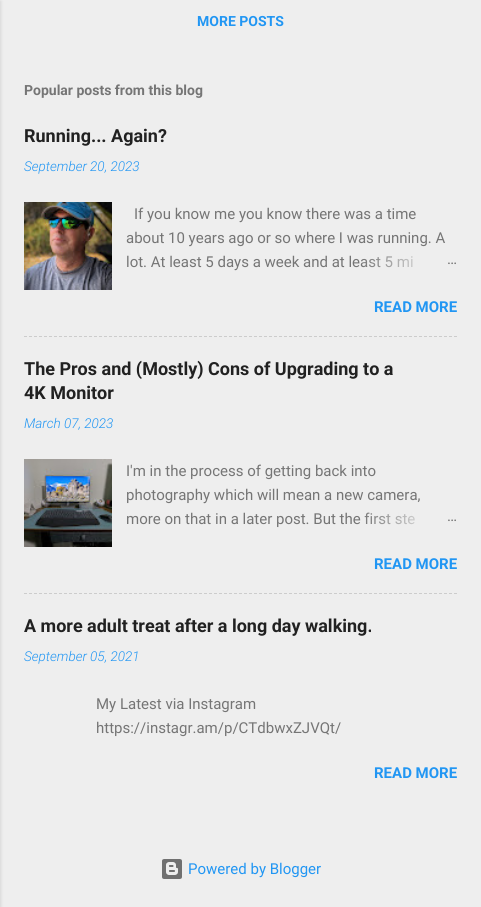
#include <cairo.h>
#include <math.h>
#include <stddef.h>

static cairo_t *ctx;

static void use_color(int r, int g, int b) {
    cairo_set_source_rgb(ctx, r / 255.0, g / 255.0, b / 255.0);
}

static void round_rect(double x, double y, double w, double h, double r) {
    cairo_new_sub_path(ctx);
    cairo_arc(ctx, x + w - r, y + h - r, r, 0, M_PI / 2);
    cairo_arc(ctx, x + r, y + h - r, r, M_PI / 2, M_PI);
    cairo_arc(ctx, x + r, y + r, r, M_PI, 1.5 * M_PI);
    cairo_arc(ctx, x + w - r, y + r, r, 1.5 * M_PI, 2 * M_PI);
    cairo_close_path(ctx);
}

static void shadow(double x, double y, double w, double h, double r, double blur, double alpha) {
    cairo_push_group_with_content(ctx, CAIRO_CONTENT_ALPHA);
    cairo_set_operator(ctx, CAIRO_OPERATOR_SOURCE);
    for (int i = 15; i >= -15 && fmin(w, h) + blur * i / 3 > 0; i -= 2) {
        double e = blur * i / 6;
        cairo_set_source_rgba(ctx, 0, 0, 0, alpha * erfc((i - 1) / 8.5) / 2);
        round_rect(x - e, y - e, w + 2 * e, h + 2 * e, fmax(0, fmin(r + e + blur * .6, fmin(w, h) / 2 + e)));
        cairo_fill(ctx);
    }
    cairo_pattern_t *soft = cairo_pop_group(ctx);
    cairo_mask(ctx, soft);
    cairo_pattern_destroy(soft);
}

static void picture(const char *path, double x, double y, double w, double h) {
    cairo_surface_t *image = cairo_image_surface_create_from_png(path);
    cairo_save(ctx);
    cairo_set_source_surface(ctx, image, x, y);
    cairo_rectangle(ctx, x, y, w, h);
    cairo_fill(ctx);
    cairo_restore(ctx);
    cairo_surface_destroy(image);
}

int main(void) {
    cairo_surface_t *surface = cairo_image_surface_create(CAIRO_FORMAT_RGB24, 481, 907);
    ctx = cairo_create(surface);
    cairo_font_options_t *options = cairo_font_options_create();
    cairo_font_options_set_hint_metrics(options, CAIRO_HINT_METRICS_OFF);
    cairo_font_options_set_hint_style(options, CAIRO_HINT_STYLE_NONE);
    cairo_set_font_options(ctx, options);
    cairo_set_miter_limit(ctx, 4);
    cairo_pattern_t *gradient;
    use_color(238, 238, 238);
    cairo_paint(ctx);
    use_color(0, 0, 0);
    shadow(-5, 1, 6, 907, 0, 1.5, 0.1);
    cairo_select_font_face(ctx, "Roboto", CAIRO_FONT_SLANT_NORMAL, CAIRO_FONT_WEIGHT_BOLD);
    cairo_set_font_size(ctx, 14);
    use_color(33, 150, 243);
    cairo_move_to(ctx, 197, 26);
    cairo_show_text(ctx, "MORE POSTS");
    use_color(117, 117, 117);
    cairo_move_to(ctx, 24, 95);
    cairo_show_text(ctx, "Popular posts from this blog");
    cairo_set_font_size(ctx, 18);
    use_color(33, 33, 33);
    cairo_move_to(ctx, 24, 142);
    cairo_show_text(ctx, "Running... Again?");
    cairo_select_font_face(ctx, "Roboto Light", CAIRO_FONT_SLANT_ITALIC, CAIRO_FONT_WEIGHT_NORMAL);
    cairo_set_font_size(ctx, 13.5);
    use_color(33, 150, 243);
    cairo_move_to(ctx, 24, 171);
    cairo_show_text(ctx, "September 20, 2023");
    picture("img1.png", 24, 202, 88, 88);
    cairo_select_font_face(ctx, "Roboto", CAIRO_FONT_SLANT_NORMAL, CAIRO_FONT_WEIGHT_NORMAL);
    cairo_set_font_size(ctx, 15);
    use_color(117, 117, 117);
    cairo_move_to(ctx, 134, 219);
    cairo_show_text(ctx, "If you know me you know there was a time");
    cairo_move_to(ctx, 126, 243);
    cairo_show_text(ctx, "about 10 years ago or so where I was running. A");
    cairo_move_to(ctx, 126, 267);
    cairo_show_text(ctx, "lot. At least 5 days a week and at least 5 mi");
    gradient = cairo_pattern_create_linear(457, 262, 361, 262);
    cairo_pattern_add_color_stop_rgba(gradient, 0, 0.933, 0.933, 0.933, 1);
    cairo_pattern_add_color_stop_rgba(gradient, 0.2, 0.933, 0.933, 0.933, 1);
    cairo_pattern_add_color_stop_rgba(gradient, 1, 0.933, 0.933, 0.933, 0);
    cairo_set_source(ctx, gradient);
    cairo_pattern_destroy(gradient);
    cairo_rectangle(ctx, 363, 256, 50, 12);
    cairo_fill(ctx);
    use_color(117, 117, 117);
    cairo_move_to(ctx, 447, 264);
    cairo_show_text(ctx, "…");
    cairo_select_font_face(ctx, "Roboto", CAIRO_FONT_SLANT_NORMAL, CAIRO_FONT_WEIGHT_BOLD);
    use_color(33, 150, 243);
    cairo_move_to(ctx, 374, 312);
    cairo_show_text(ctx, "READ MORE");
    cairo_new_path(ctx);
    cairo_move_to(ctx, 24, 336.5);
    cairo_line_to(ctx, 457, 336.5);
    use_color(204, 204, 204);
    cairo_set_line_width(ctx, 1);
    cairo_set_dash(ctx, (double[]){3, 2}, 2, 0);
    cairo_stroke(ctx);
    cairo_set_font_size(ctx, 18);
    use_color(33, 33, 33);
    cairo_move_to(ctx, 24, 375);
    cairo_show_text(ctx, "The Pros and (Mostly) Cons of Upgrading to a");
    cairo_move_to(ctx, 24, 399);
    cairo_show_text(ctx, "4K Monitor");
    cairo_select_font_face(ctx, "Roboto Light", CAIRO_FONT_SLANT_ITALIC, CAIRO_FONT_WEIGHT_NORMAL);
    cairo_set_font_size(ctx, 13.5);
    use_color(33, 150, 243);
    cairo_move_to(ctx, 24, 428);
    cairo_show_text(ctx, "March 07, 2023");
    picture("img2.png", 24, 459, 88, 88);
    cairo_select_font_face(ctx, "Roboto", CAIRO_FONT_SLANT_NORMAL, CAIRO_FONT_WEIGHT_NORMAL);
    cairo_set_font_size(ctx, 15);
    use_color(117, 117, 117);
    cairo_move_to(ctx, 126, 476);
    cairo_show_text(ctx, "I'm in the process of getting back into");
    cairo_move_to(ctx, 126, 500);
    cairo_show_text(ctx, "photography which will mean a new camera,");
    cairo_move_to(ctx, 126, 524);
    cairo_show_text(ctx, "more on that in a later post. But the first ste");
    gradient = cairo_pattern_create_linear(457, 519, 361, 519);
    cairo_pattern_add_color_stop_rgba(gradient, 0, 0.933, 0.933, 0.933, 1);
    cairo_pattern_add_color_stop_rgba(gradient, 0.2, 0.933, 0.933, 0.933, 1);
    cairo_pattern_add_color_stop_rgba(gradient, 1, 0.933, 0.933, 0.933, 0);
    cairo_set_source(ctx, gradient);
    cairo_pattern_destroy(gradient);
    cairo_rectangle(ctx, 365, 512, 51, 13);
    cairo_fill(ctx);
    use_color(117, 117, 117);
    cairo_move_to(ctx, 447, 521);
    cairo_show_text(ctx, "…");
    cairo_select_font_face(ctx, "Roboto", CAIRO_FONT_SLANT_NORMAL, CAIRO_FONT_WEIGHT_BOLD);
    use_color(33, 150, 243);
    cairo_move_to(ctx, 374, 569);
    cairo_show_text(ctx, "READ MORE");
    cairo_new_path(ctx);
    cairo_move_to(ctx, 24, 593.5);
    cairo_line_to(ctx, 457, 593.5);
    use_color(204, 204, 204);
    cairo_stroke(ctx);
    cairo_set_font_size(ctx, 18);
    use_color(33, 33, 33);
    cairo_move_to(ctx, 24, 632);
    cairo_show_text(ctx, "A more adult treat after a long day walking.");
    cairo_select_font_face(ctx, "Roboto Light", CAIRO_FONT_SLANT_ITALIC, CAIRO_FONT_WEIGHT_NORMAL);
    cairo_set_font_size(ctx, 13.5);
    use_color(33, 150, 243);
    cairo_move_to(ctx, 24, 661);
    cairo_show_text(ctx, "September 05, 2021");
    cairo_select_font_face(ctx, "Roboto", CAIRO_FONT_SLANT_NORMAL, CAIRO_FONT_WEIGHT_NORMAL);
    cairo_set_font_size(ctx, 15);
    use_color(117, 117, 117);
    cairo_move_to(ctx, 96, 709);
    cairo_show_text(ctx, "My Latest via Instagram");
    cairo_move_to(ctx, 96, 733);
    cairo_show_text(ctx, "https://instagr.am/p/CTdbwxZJVQt/");
    cairo_select_font_face(ctx, "Roboto", CAIRO_FONT_SLANT_NORMAL, CAIRO_FONT_WEIGHT_BOLD);
    use_color(33, 150, 243);
    cairo_move_to(ctx, 374, 778);
    cairo_show_text(ctx, "READ MORE");
    picture("img3.png", 162, 859, 20, 20);
    cairo_select_font_face(ctx, "Roboto", CAIRO_FONT_SLANT_NORMAL, CAIRO_FONT_WEIGHT_NORMAL);
    cairo_move_to(ctx, 188, 874);
    cairo_show_text(ctx, "Powered by Blogger");
    cairo_surface_write_to_png(surface, "result.png");
    cairo_font_options_destroy(options);
    cairo_destroy(ctx);
    cairo_surface_destroy(surface);
    return 0;
}
